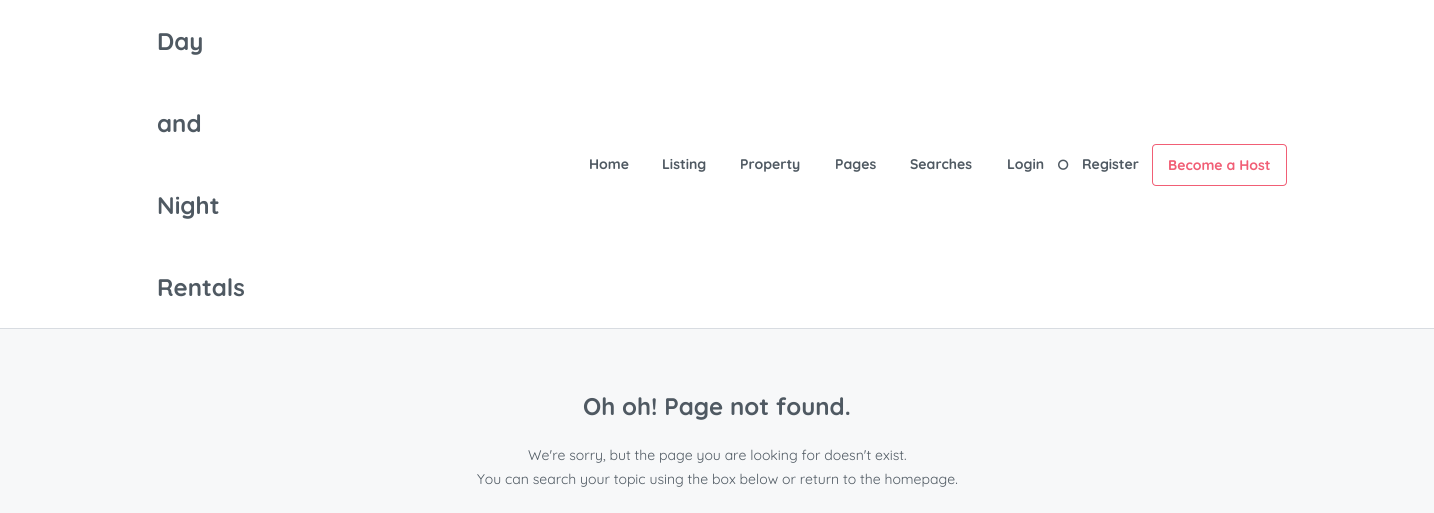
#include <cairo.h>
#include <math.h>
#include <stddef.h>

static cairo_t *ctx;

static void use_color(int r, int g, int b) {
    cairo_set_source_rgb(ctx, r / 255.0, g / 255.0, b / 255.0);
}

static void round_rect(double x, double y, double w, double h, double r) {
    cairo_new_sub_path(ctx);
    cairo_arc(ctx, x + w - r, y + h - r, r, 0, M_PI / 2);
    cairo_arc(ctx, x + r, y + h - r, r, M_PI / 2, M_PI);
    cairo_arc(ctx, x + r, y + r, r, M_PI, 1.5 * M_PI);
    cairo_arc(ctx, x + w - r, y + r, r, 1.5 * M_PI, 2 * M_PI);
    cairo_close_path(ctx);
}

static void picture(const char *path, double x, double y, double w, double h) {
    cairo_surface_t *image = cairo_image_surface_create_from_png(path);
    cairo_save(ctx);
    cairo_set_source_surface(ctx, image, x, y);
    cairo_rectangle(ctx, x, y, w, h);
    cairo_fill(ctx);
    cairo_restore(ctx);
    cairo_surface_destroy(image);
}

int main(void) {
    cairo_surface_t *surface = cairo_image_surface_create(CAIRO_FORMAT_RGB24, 1434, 513);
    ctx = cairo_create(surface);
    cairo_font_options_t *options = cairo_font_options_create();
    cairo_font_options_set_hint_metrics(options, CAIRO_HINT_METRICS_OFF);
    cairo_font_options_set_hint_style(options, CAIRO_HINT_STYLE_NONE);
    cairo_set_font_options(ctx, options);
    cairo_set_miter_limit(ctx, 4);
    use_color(247, 248, 249);
    cairo_paint(ctx);
    use_color(255, 255, 255);
    cairo_rectangle(ctx, 0, 0, 1434, 328);
    cairo_fill(ctx);
    use_color(216, 220, 225);
    cairo_rectangle(ctx, 0, 328, 1434, 1);
    cairo_fill(ctx);
    cairo_select_font_face(ctx, "Quicksand", CAIRO_FONT_SLANT_NORMAL, CAIRO_FONT_WEIGHT_BOLD);
    cairo_set_font_size(ctx, 24);
    use_color(79, 89, 98);
    cairo_move_to(ctx, 157, 50);
    cairo_show_text(ctx, "Day");
    cairo_move_to(ctx, 157, 132);
    cairo_show_text(ctx, "and");
    cairo_move_to(ctx, 157, 214);
    cairo_show_text(ctx, "Night");
    cairo_move_to(ctx, 157, 296);
    cairo_show_text(ctx, "Rentals");
    cairo_set_font_size(ctx, 14);
    cairo_move_to(ctx, 589, 169);
    cairo_show_text(ctx, "Home");
    cairo_move_to(ctx, 662, 169);
    cairo_show_text(ctx, "Listing");
    cairo_move_to(ctx, 740, 169);
    cairo_show_text(ctx, "Property");
    cairo_move_to(ctx, 835, 169);
    cairo_show_text(ctx, "Pages");
    cairo_move_to(ctx, 910, 169);
    cairo_show_text(ctx, "Searches");
    cairo_move_to(ctx, 1007, 169);
    cairo_show_text(ctx, "Login");
    picture("img1.png", 1058, 159, 11, 11);
    cairo_move_to(ctx, 1082, 169);
    cairo_show_text(ctx, "Register");
    round_rect(1152.5, 144.5, 134, 41, 3.5);
    use_color(241, 94, 117);
    cairo_set_line_width(ctx, 1);
    cairo_stroke(ctx);
    cairo_move_to(ctx, 1168, 170);
    cairo_show_text(ctx, "Become a Host");
    cairo_set_font_size(ctx, 24);
    use_color(79, 89, 98);
    cairo_move_to(ctx, 583, 415);
    cairo_show_text(ctx, "Oh oh! Page not found.");
    cairo_select_font_face(ctx, "Quicksand", CAIRO_FONT_SLANT_NORMAL, CAIRO_FONT_WEIGHT_NORMAL);
    cairo_set_font_size(ctx, 14);
    cairo_move_to(ctx, 528, 460);
    cairo_show_text(ctx, "We're sorry, but the page you are looking for doesn't exist.");
    cairo_move_to(ctx, 477, 484);
    cairo_show_text(ctx, "You can search your topic using the box below or return to the homepage.");
    cairo_surface_write_to_png(surface, "result.png");
    cairo_font_options_destroy(options);
    cairo_destroy(ctx);
    cairo_surface_destroy(surface);
    return 0;
}
